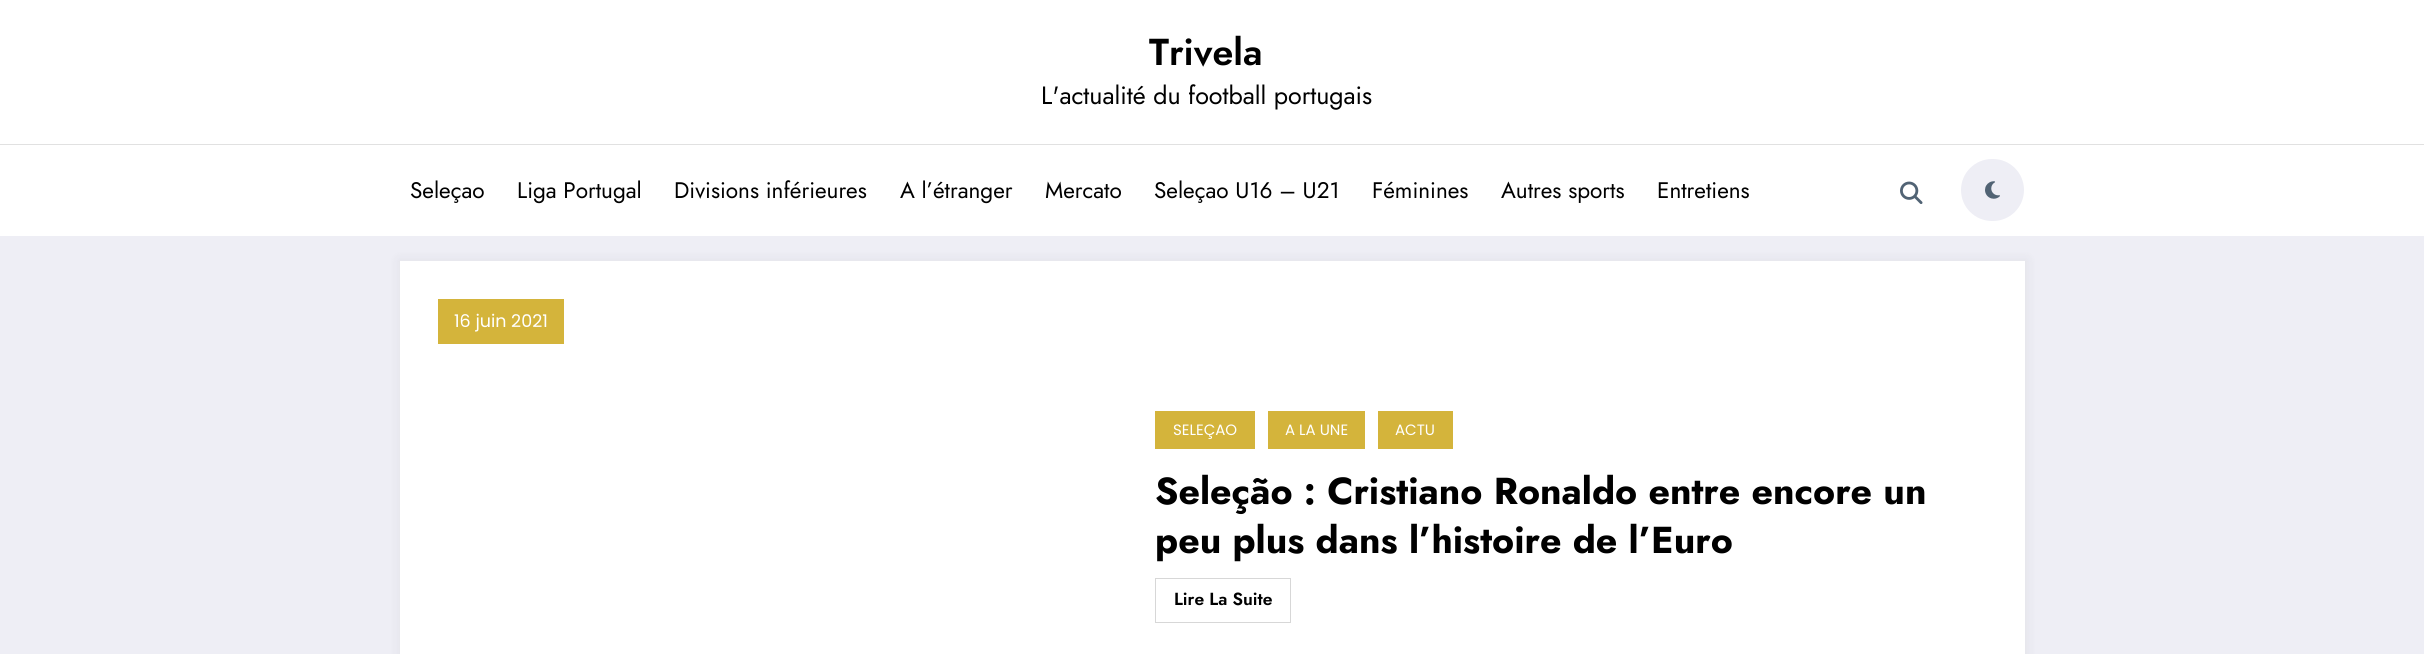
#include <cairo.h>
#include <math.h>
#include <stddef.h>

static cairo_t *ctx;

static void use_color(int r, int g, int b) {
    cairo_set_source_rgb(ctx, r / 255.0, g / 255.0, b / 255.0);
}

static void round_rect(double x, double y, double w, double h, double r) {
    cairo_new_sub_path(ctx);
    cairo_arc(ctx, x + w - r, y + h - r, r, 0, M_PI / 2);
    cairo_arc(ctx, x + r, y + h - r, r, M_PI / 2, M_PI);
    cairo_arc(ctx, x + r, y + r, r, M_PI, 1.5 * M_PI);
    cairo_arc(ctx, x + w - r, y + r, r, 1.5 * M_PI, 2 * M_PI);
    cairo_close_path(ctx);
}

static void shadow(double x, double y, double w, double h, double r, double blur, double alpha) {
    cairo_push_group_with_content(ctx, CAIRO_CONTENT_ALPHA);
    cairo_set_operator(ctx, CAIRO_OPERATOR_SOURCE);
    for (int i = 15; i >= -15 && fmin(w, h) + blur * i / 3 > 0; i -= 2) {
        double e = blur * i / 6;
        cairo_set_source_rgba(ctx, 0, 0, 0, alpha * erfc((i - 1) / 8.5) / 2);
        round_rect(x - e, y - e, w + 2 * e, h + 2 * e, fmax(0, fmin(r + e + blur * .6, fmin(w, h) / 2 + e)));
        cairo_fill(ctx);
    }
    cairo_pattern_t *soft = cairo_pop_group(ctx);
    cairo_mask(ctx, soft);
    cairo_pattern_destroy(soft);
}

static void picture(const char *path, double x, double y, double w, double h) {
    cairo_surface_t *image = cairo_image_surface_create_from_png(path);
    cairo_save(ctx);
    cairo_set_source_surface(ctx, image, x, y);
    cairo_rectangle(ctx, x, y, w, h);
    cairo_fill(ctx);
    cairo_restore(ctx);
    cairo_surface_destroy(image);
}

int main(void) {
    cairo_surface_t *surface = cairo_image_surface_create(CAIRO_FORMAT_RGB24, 2424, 654);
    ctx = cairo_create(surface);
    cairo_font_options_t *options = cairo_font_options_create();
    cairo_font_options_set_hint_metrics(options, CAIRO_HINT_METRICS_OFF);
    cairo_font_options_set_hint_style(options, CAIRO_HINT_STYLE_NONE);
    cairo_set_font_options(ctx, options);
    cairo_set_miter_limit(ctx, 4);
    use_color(238, 238, 245);
    cairo_paint(ctx);
    use_color(255, 255, 255);
    cairo_rectangle(ctx, 0, 0, 2424, 236);
    cairo_fill(ctx);
    cairo_select_font_face(ctx, "Jost SemiBold", CAIRO_FONT_SLANT_NORMAL, CAIRO_FONT_WEIGHT_NORMAL);
    cairo_set_font_size(ctx, 37.5);
    use_color(0, 0, 0);
    cairo_move_to(ctx, 1149, 65);
    cairo_show_text(ctx, "Trivela");
    cairo_select_font_face(ctx, "Jost", CAIRO_FONT_SLANT_NORMAL, CAIRO_FONT_WEIGHT_NORMAL);
    cairo_set_font_size(ctx, 25);
    cairo_move_to(ctx, 1041, 104);
    cairo_show_text(ctx, "L'actualité du football portugais");
    use_color(225, 225, 225);
    cairo_rectangle(ctx, 0, 144, 2424, 1);
    cairo_fill(ctx);
    cairo_set_font_size(ctx, 22.5);
    use_color(0, 0, 0);
    cairo_move_to(ctx, 410, 198);
    cairo_show_text(ctx, "Seleçao");
    cairo_move_to(ctx, 517, 198);
    cairo_show_text(ctx, "Liga Portugal");
    cairo_move_to(ctx, 674, 198);
    cairo_show_text(ctx, "Divisions inférieures");
    cairo_move_to(ctx, 900, 198);
    cairo_show_text(ctx, "A l’étranger");
    cairo_move_to(ctx, 1045, 198);
    cairo_show_text(ctx, "Mercato");
    cairo_move_to(ctx, 1154, 198);
    cairo_show_text(ctx, "Seleçao U16 – U21");
    cairo_move_to(ctx, 1372, 198);
    cairo_show_text(ctx, "Féminines");
    cairo_move_to(ctx, 1501, 198);
    cairo_show_text(ctx, "Autres sports");
    cairo_move_to(ctx, 1657, 198);
    cairo_show_text(ctx, "Entretiens");
    picture("img1.png", 1900, 181, 23, 23);
    use_color(238, 238, 245);
    round_rect(1961, 159, 63, 62, 31);
    cairo_fill(ctx);
    picture("img2.png", 1985, 181, 15, 18);
    use_color(23, 23, 35);
    shadow(398, 259, 1630, 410, 0, 5, 0.05);
    use_color(255, 255, 255);
    cairo_rectangle(ctx, 400, 261, 1625, 393);
    cairo_fill(ctx);
    use_color(212, 180, 59);
    cairo_rectangle(ctx, 438, 299, 126, 45);
    cairo_fill(ctx);
    cairo_select_font_face(ctx, "Poppins", CAIRO_FONT_SLANT_NORMAL, CAIRO_FONT_WEIGHT_NORMAL);
    cairo_set_font_size(ctx, 17.5);
    use_color(255, 255, 255);
    cairo_move_to(ctx, 454, 327);
    cairo_show_text(ctx, "16 juin 2021");
    use_color(212, 180, 59);
    cairo_rectangle(ctx, 1155, 411, 100, 38);
    cairo_fill(ctx);
    cairo_set_font_size(ctx, 15);
    use_color(255, 255, 255);
    cairo_move_to(ctx, 1173, 435);
    cairo_show_text(ctx, "SELEÇAO");
    use_color(212, 180, 59);
    cairo_rectangle(ctx, 1268, 411, 97, 38);
    cairo_fill(ctx);
    use_color(255, 255, 255);
    cairo_move_to(ctx, 1285, 435);
    cairo_show_text(ctx, "A LA UNE");
    use_color(212, 180, 59);
    cairo_rectangle(ctx, 1378, 411, 75, 38);
    cairo_fill(ctx);
    use_color(255, 255, 255);
    cairo_move_to(ctx, 1395, 435);
    cairo_show_text(ctx, "ACTU");
    cairo_select_font_face(ctx, "Jost", CAIRO_FONT_SLANT_NORMAL, CAIRO_FONT_WEIGHT_BOLD);
    cairo_set_font_size(ctx, 37.5);
    use_color(0, 0, 0);
    cairo_move_to(ctx, 1155, 504);
    cairo_show_text(ctx, "Seleção : Cristiano Ronaldo entre encore un");
    cairo_move_to(ctx, 1155, 553);
    cairo_show_text(ctx, "peu plus dans l’histoire de l’Euro");
    cairo_rectangle(ctx, 1155.5, 578.5, 135, 44);
    use_color(215, 215, 215);
    cairo_set_line_width(ctx, 1);
    cairo_stroke(ctx);
    cairo_select_font_face(ctx, "Jost SemiBold", CAIRO_FONT_SLANT_NORMAL, CAIRO_FONT_WEIGHT_NORMAL);
    cairo_set_font_size(ctx, 17.5);
    use_color(0, 0, 0);
    cairo_move_to(ctx, 1174, 605);
    cairo_show_text(ctx, "Lire La Suite");
    cairo_surface_write_to_png(surface, "result.png");
    cairo_font_options_destroy(options);
    cairo_destroy(ctx);
    cairo_surface_destroy(surface);
    return 0;
}
